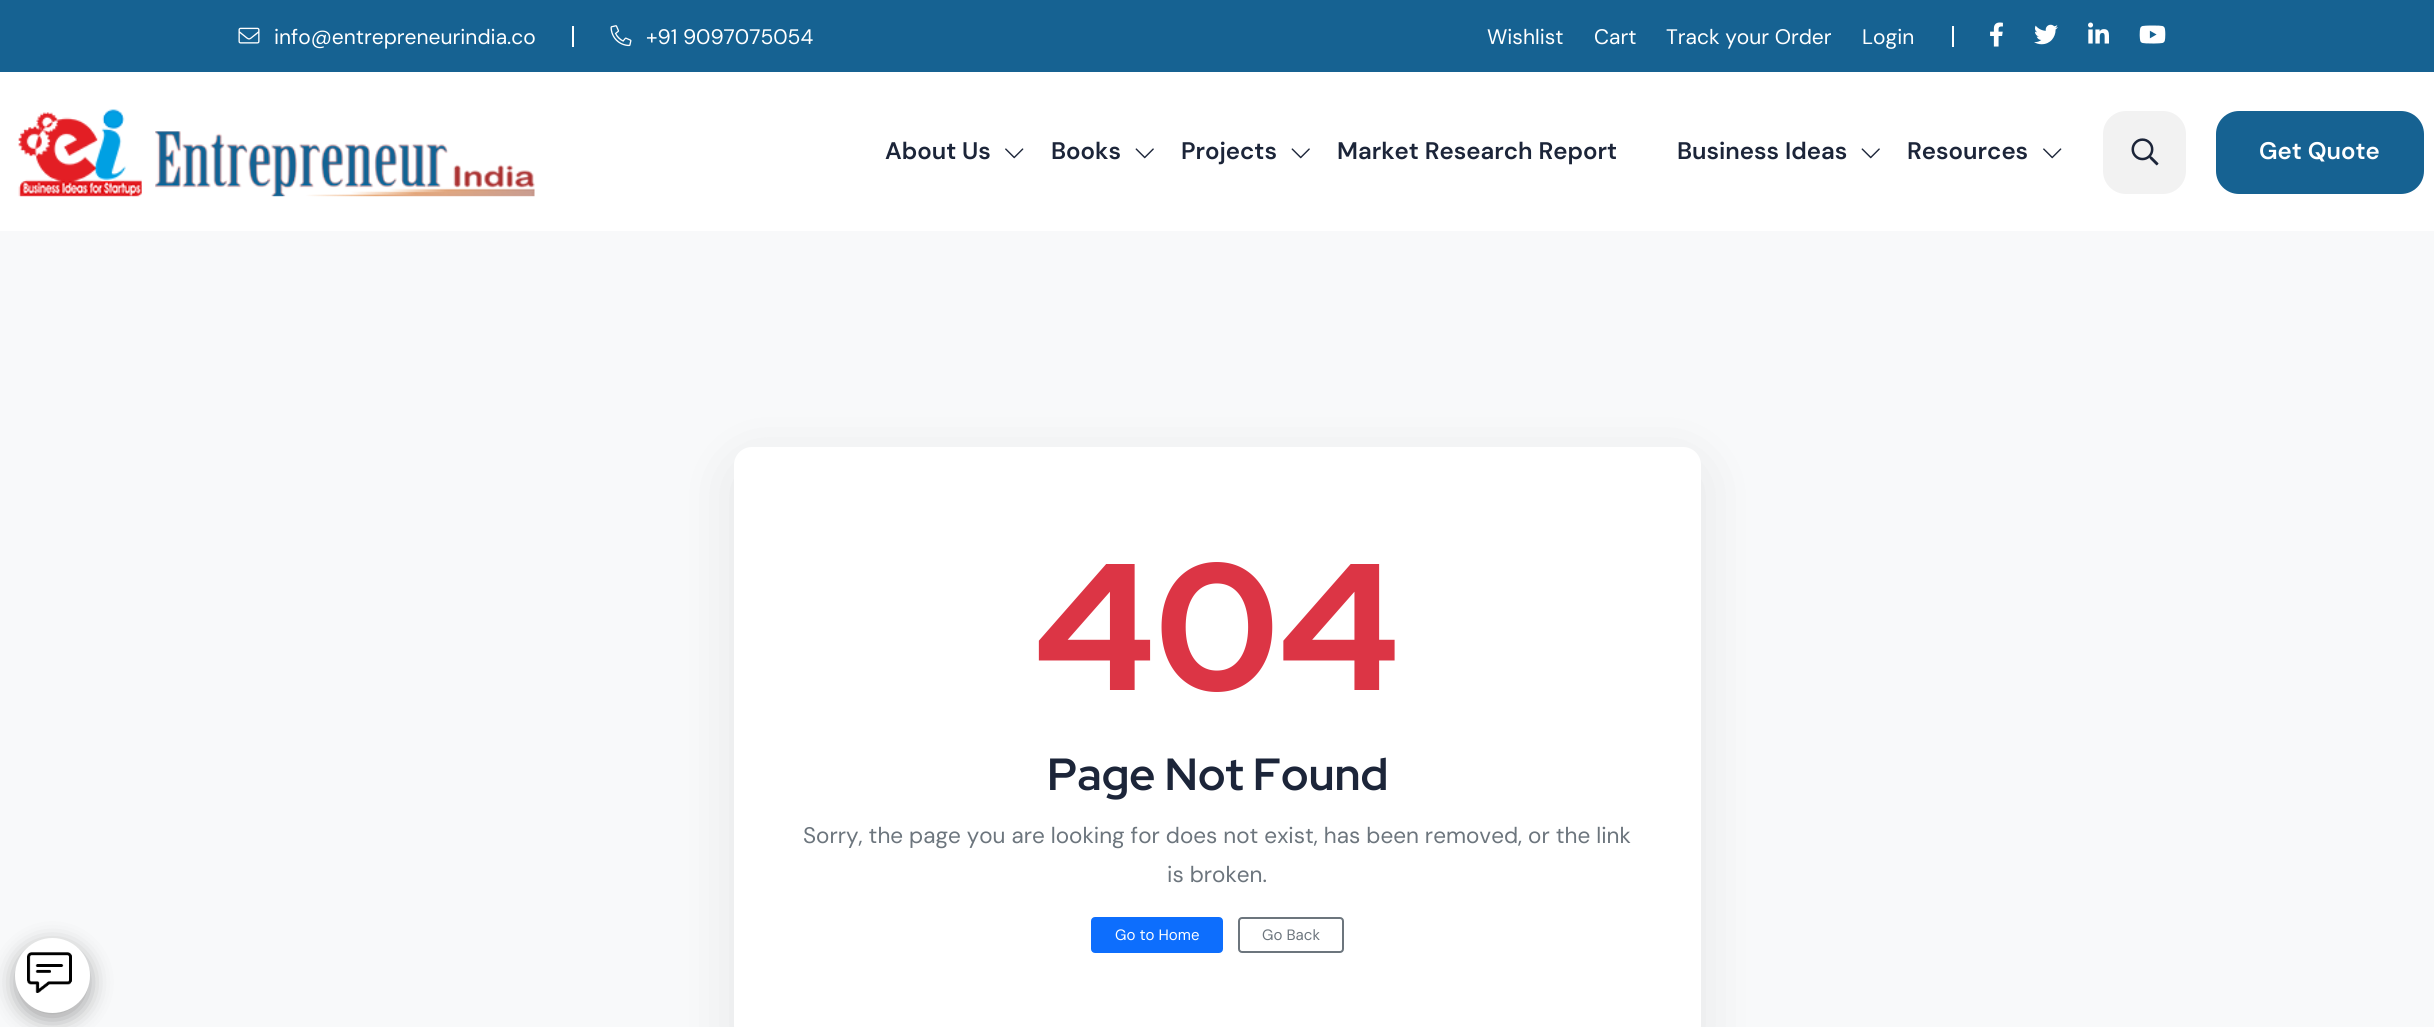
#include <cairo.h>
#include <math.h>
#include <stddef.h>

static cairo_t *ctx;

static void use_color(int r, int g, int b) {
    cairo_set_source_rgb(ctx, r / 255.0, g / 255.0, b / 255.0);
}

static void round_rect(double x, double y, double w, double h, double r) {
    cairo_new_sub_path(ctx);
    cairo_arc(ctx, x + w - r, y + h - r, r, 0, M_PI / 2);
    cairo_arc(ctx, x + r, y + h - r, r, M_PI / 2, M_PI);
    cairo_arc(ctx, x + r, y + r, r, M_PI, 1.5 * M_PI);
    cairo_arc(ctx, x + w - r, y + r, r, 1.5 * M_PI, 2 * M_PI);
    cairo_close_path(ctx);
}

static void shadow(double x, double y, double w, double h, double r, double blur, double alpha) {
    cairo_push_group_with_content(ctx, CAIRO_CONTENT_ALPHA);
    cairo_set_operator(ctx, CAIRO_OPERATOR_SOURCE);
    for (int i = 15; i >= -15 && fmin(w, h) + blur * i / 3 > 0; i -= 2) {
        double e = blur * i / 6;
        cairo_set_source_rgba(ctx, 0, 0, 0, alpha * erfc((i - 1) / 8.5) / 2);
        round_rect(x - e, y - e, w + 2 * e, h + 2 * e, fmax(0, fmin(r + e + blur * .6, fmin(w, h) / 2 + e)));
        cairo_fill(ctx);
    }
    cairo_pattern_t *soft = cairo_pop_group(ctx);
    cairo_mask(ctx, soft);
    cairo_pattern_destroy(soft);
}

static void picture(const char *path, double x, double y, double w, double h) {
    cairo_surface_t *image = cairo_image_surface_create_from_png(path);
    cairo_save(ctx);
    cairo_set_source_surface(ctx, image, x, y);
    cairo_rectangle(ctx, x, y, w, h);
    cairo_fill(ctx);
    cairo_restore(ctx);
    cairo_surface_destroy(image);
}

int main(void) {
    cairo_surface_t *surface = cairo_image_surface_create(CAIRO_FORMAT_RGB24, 2434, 1027);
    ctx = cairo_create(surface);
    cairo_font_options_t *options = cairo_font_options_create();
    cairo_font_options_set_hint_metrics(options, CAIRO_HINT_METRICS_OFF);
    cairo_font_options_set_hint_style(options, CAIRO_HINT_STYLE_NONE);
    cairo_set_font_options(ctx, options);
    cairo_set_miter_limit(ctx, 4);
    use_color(255, 255, 255);
    cairo_paint(ctx);
    use_color(22, 98, 146);
    cairo_rectangle(ctx, 0, 0, 2434, 72);
    cairo_fill(ctx);
    picture("img1.png", 238, 27, 22, 17);
    cairo_select_font_face(ctx, "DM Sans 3", CAIRO_FONT_SLANT_NORMAL, CAIRO_FONT_WEIGHT_NORMAL);
    cairo_set_font_size(ctx, 21);
    use_color(255, 255, 255);
    cairo_move_to(ctx, 274, 44);
    cairo_show_text(ctx, "info@entrepreneurindia.co");
    cairo_rectangle(ctx, 572, 26, 2, 21);
    cairo_fill(ctx);
    picture("img2.png", 610, 25, 22, 22);
    cairo_move_to(ctx, 646, 44);
    cairo_show_text(ctx, "+91 9097075054");
    cairo_move_to(ctx, 1487, 44);
    cairo_show_text(ctx, "Wishlist");
    cairo_move_to(ctx, 1594, 44);
    cairo_show_text(ctx, "Cart");
    cairo_move_to(ctx, 1666, 44);
    cairo_show_text(ctx, "Track your Order");
    cairo_move_to(ctx, 1862, 44);
    cairo_show_text(ctx, "Login");
    cairo_rectangle(ctx, 1952, 26, 2, 21);
    cairo_fill(ctx);
    picture("img3.png", 1990, 22, 13, 25);
    picture("img4.png", 2034, 24, 24, 21);
    picture("img5.png", 2088, 22, 21, 22);
    picture("img6.png", 2139, 25, 27, 19);
    picture("img7.png", 18, 109, 517, 88);
    cairo_select_font_face(ctx, "DM Sans SemiBold", CAIRO_FONT_SLANT_NORMAL, CAIRO_FONT_WEIGHT_NORMAL);
    cairo_set_font_size(ctx, 24);
    use_color(28, 37, 57);
    cairo_move_to(ctx, 885, 159);
    cairo_show_text(ctx, "About Us");
    picture("img8.png", 1005, 148, 19, 11);
    cairo_move_to(ctx, 1051, 159);
    cairo_show_text(ctx, "Books");
    picture("img9.png", 1135, 148, 19, 11);
    cairo_move_to(ctx, 1181, 159);
    cairo_show_text(ctx, "Projects");
    picture("img9.png", 1291, 148, 19, 11);
    cairo_move_to(ctx, 1337, 159);
    cairo_show_text(ctx, "Market Research Report");
    cairo_move_to(ctx, 1677, 159);
    cairo_show_text(ctx, "Business Ideas");
    picture("img9.png", 1861, 148, 19, 11);
    cairo_move_to(ctx, 1907, 159);
    cairo_show_text(ctx, "Resources");
    picture("img8.png", 2043, 148, 19, 11);
    use_color(242, 242, 242);
    round_rect(2103, 111, 83, 83, 23);
    cairo_fill(ctx);
    picture("img10.png", 2131, 138, 28, 28);
    use_color(22, 98, 146);
    round_rect(2216, 111, 208, 83, 23);
    cairo_fill(ctx);
    use_color(255, 255, 255);
    cairo_move_to(ctx, 2259, 159);
    cairo_show_text(ctx, "Get Quote");
    use_color(248, 249, 250);
    cairo_rectangle(ctx, 0, 231, 2434, 796);
    cairo_fill(ctx);
    use_color(0, 0, 0);
    shadow(734, 462, 967, 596, 18, 30, 0.08);
    use_color(255, 255, 255);
    round_rect(734, 447, 967, 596, 18);
    cairo_fill(ctx);
    cairo_select_font_face(ctx, "Red Hat Display ExtraBold", CAIRO_FONT_SLANT_NORMAL, CAIRO_FONT_WEIGHT_NORMAL);
    cairo_set_font_size(ctx, 180);
    use_color(220, 53, 69);
    cairo_move_to(ctx, 1034, 690);
    cairo_show_text(ctx, "404");
    cairo_select_font_face(ctx, "Red Hat Display", CAIRO_FONT_SLANT_NORMAL, CAIRO_FONT_WEIGHT_BOLD);
    cairo_set_font_size(ctx, 45);
    use_color(28, 37, 57);
    cairo_move_to(ctx, 1047, 790);
    cairo_show_text(ctx, "Page Not Found");
    cairo_select_font_face(ctx, "DM Sans", CAIRO_FONT_SLANT_NORMAL, CAIRO_FONT_WEIGHT_NORMAL);
    cairo_set_font_size(ctx, 22.5);
    use_color(108, 117, 125);
    cairo_move_to(ctx, 803, 843);
    cairo_show_text(ctx, "Sorry, the page you are looking for does not exist, has been removed, or the link");
    cairo_move_to(ctx, 1167, 882);
    cairo_show_text(ctx, "is broken.");
    use_color(13, 110, 253);
    round_rect(1092, 918, 130, 34, 3);
    cairo_fill_preserve(ctx);
    cairo_stroke(ctx);
    cairo_select_font_face(ctx, "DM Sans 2", CAIRO_FONT_SLANT_NORMAL, CAIRO_FONT_WEIGHT_NORMAL);
    cairo_set_font_size(ctx, 15);
    use_color(255, 255, 255);
    cairo_move_to(ctx, 1115, 940);
    cairo_show_text(ctx, "Go to Home");
    round_rect(1239, 918, 104, 34, 3);
    use_color(108, 117, 125);
    cairo_stroke(ctx);
    cairo_move_to(ctx, 1262, 940);
    cairo_show_text(ctx, "Go Back");
    use_color(0, 0, 0);
    shadow(15, 945, 75, 75, 37.5, 11, 0.35);
    use_color(255, 255, 255);
    cairo_arc(ctx, 52.5, 975.5, 37.5, 0, 2 * M_PI);
    cairo_fill(ctx);
    picture("img11.png", 27, 952, 45, 41);
    cairo_surface_write_to_png(surface, "result.png");
    cairo_font_options_destroy(options);
    cairo_destroy(ctx);
    cairo_surface_destroy(surface);
    return 0;
}
